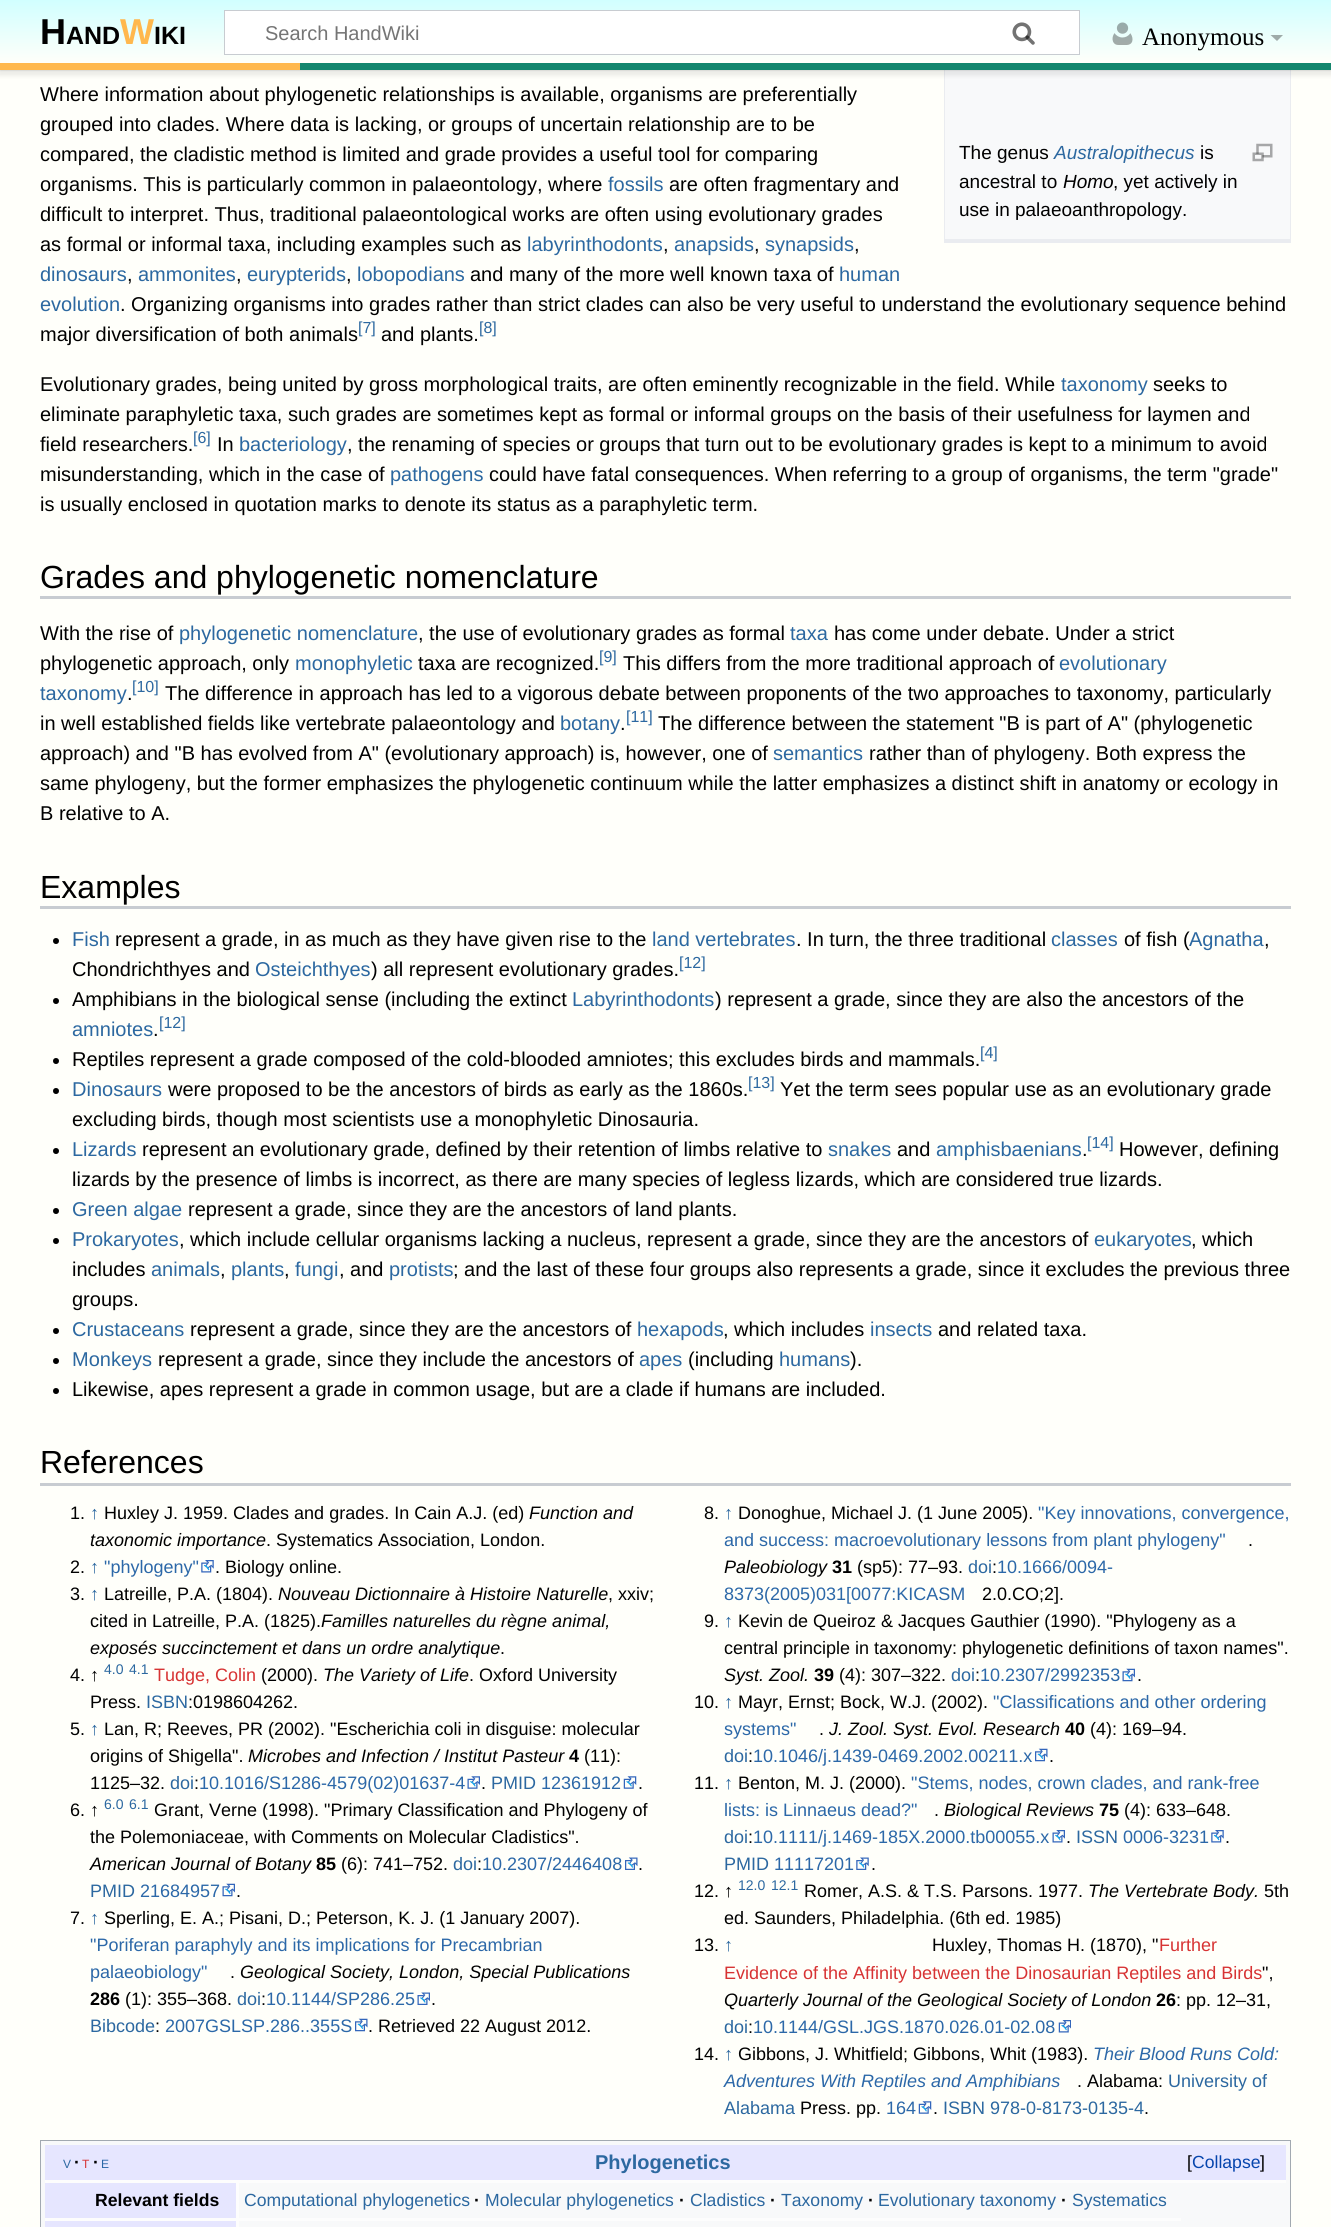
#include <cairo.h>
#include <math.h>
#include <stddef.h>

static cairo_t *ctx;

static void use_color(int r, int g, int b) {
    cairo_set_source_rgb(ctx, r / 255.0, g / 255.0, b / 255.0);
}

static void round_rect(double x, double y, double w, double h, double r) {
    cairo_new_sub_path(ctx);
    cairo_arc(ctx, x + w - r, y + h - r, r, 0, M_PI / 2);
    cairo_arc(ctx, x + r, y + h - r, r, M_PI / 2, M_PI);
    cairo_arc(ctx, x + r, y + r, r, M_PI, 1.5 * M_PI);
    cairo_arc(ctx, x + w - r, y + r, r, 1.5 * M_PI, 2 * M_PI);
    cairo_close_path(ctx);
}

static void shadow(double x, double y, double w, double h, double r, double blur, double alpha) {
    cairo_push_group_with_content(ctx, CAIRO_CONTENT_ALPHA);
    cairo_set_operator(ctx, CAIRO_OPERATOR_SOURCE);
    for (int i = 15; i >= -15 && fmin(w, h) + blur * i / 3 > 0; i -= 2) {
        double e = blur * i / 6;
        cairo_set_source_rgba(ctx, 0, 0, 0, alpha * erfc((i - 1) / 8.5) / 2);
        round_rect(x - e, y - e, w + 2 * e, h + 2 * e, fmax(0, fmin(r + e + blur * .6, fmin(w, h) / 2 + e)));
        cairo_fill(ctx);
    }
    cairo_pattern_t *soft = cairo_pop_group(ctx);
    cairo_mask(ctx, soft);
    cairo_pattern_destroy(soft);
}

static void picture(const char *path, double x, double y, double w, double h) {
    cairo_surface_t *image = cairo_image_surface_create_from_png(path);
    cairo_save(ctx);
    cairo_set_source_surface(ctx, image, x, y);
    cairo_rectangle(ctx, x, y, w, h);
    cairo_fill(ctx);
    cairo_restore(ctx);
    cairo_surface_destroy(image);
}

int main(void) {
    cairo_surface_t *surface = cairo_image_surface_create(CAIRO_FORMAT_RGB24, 1331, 2227);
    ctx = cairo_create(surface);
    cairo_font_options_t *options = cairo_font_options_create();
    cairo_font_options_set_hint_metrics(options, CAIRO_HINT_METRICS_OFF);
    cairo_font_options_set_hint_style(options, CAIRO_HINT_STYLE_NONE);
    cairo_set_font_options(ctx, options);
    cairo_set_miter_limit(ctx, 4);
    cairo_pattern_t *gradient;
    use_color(255, 255, 250);
    cairo_paint(ctx);
    use_color(248, 249, 250);
    cairo_rectangle(ctx, 945, 70, 345, 169);
    cairo_fill(ctx);
    use_color(234, 236, 240);
    cairo_rectangle(ctx, 944, 239, 347, 4);
    cairo_fill(ctx);
    cairo_rectangle(ctx, 1290, 70, 1, 173);
    cairo_fill(ctx);
    cairo_rectangle(ctx, 944, 70, 1, 173);
    cairo_fill(ctx);
    use_color(0, 0, 0);
    shadow(0, 63, 1331, 7, 0, 1, 0.2);
    shadow(-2, 64, 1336, 12, 0, 2, 0.07);
    gradient = cairo_pattern_create_linear(666, 0, 666, 63);
    cairo_pattern_add_color_stop_rgba(gradient, 0, 0.82, 1, 1, 1);
    cairo_pattern_add_color_stop_rgba(gradient, 1, 1, 1, 0.98, 1);
    cairo_set_source(ctx, gradient);
    cairo_pattern_destroy(gradient);
    cairo_rectangle(ctx, 0, 0, 1331, 63);
    cairo_fill(ctx);
    cairo_select_font_face(ctx, "Liberation Sans", CAIRO_FONT_SLANT_NORMAL, CAIRO_FONT_WEIGHT_BOLD);
    cairo_set_font_size(ctx, 36);
    use_color(0, 0, 0);
    cairo_move_to(ctx, 40, 44);
    cairo_show_text(ctx, "H");
    cairo_set_font_size(ctx, 25);
    cairo_move_to(ctx, 66, 44);
    cairo_show_text(ctx, "AND");
    cairo_set_font_size(ctx, 36);
    use_color(255, 184, 77);
    cairo_move_to(ctx, 120, 44);
    cairo_show_text(ctx, "W");
    cairo_set_font_size(ctx, 25);
    use_color(0, 0, 0);
    cairo_move_to(ctx, 154, 44);
    cairo_show_text(ctx, "IKI");
    use_color(255, 255, 255);
    cairo_rectangle(ctx, 224.5, 10.5, 855, 44);
    cairo_fill_preserve(ctx);
    use_color(200, 204, 209);
    cairo_set_line_width(ctx, 1);
    cairo_stroke(ctx);
    picture("img1.png", 1012, 22, 23, 23);
    cairo_select_font_face(ctx, "Liberation Sans", CAIRO_FONT_SLANT_NORMAL, CAIRO_FONT_WEIGHT_NORMAL);
    cairo_set_font_size(ctx, 20);
    use_color(117, 117, 117);
    cairo_move_to(ctx, 265, 40);
    cairo_show_text(ctx, "Search HandWiki");
    picture("img2.png", 1012, 22, 23, 23);
    picture("img3.png", 1112, 22, 21, 23);
    cairo_select_font_face(ctx, "Liberation Serif", CAIRO_FONT_SLANT_NORMAL, CAIRO_FONT_WEIGHT_NORMAL);
    cairo_set_font_size(ctx, 25);
    use_color(0, 0, 0);
    cairo_move_to(ctx, 1142, 45);
    cairo_show_text(ctx, "Anonymous");
    cairo_set_source_rgba(ctx, 0, 0, 0, 0.33);
    cairo_new_path(ctx);
    cairo_move_to(ctx, 1283, 35);
    cairo_line_to(ctx, 1277, 41);
    cairo_line_to(ctx, 1270.5, 35);
    cairo_close_path(ctx);
    cairo_fill(ctx);
    use_color(255, 184, 77);
    cairo_rectangle(ctx, 0, 63, 300, 7);
    cairo_fill(ctx);
    use_color(20, 134, 109);
    cairo_rectangle(ctx, 300, 63, 1031, 7);
    cairo_fill(ctx);
    cairo_select_font_face(ctx, "Liberation Sans", CAIRO_FONT_SLANT_NORMAL, CAIRO_FONT_WEIGHT_NORMAL);
    cairo_set_font_size(ctx, 20);
    use_color(0, 0, 0);
    cairo_move_to(ctx, 40, 101);
    cairo_show_text(ctx, "Where information about phylogenetic relationships is available, organisms are preferentially");
    cairo_move_to(ctx, 40, 131);
    cairo_show_text(ctx, "grouped into clades. Where data is lacking, or groups of uncertain relationship are to be");
    cairo_move_to(ctx, 40, 161);
    cairo_show_text(ctx, "compared, the cladistic method is limited and grade provides a useful tool for comparing");
    cairo_move_to(ctx, 40, 191);
    cairo_show_text(ctx, "organisms. This is particularly common in palaeontology, where");
    use_color(44, 104, 160);
    cairo_move_to(ctx, 608, 191);
    cairo_show_text(ctx, "fossils");
    use_color(0, 0, 0);
    cairo_move_to(ctx, 669, 191);
    cairo_show_text(ctx, "are often fragmentary and");
    cairo_move_to(ctx, 40, 221);
    cairo_show_text(ctx, "difficult to interpret. Thus, traditional palaeontological works are often using evolutionary grades");
    cairo_move_to(ctx, 40, 251);
    cairo_show_text(ctx, "as formal or informal taxa, including examples such as");
    use_color(44, 104, 160);
    cairo_move_to(ctx, 527, 251);
    cairo_show_text(ctx, "labyrinthodonts");
    use_color(0, 0, 0);
    cairo_move_to(ctx, 663, 251);
    cairo_show_text(ctx, ",");
    use_color(44, 104, 160);
    cairo_move_to(ctx, 674, 251);
    cairo_show_text(ctx, "anapsids");
    use_color(0, 0, 0);
    cairo_move_to(ctx, 754, 251);
    cairo_show_text(ctx, ",");
    use_color(44, 104, 160);
    cairo_move_to(ctx, 765, 251);
    cairo_show_text(ctx, "synapsids");
    use_color(0, 0, 0);
    cairo_move_to(ctx, 854, 251);
    cairo_show_text(ctx, ",");
    use_color(44, 104, 160);
    cairo_move_to(ctx, 40, 281);
    cairo_show_text(ctx, "dinosaurs");
    use_color(0, 0, 0);
    cairo_move_to(ctx, 127, 281);
    cairo_show_text(ctx, ",");
    use_color(44, 104, 160);
    cairo_move_to(ctx, 138, 281);
    cairo_show_text(ctx, "ammonites");
    use_color(0, 0, 0);
    cairo_move_to(ctx, 236, 281);
    cairo_show_text(ctx, ",");
    use_color(44, 104, 160);
    cairo_move_to(ctx, 247, 281);
    cairo_show_text(ctx, "eurypterids");
    use_color(0, 0, 0);
    cairo_move_to(ctx, 346, 281);
    cairo_show_text(ctx, ",");
    use_color(44, 104, 160);
    cairo_move_to(ctx, 357, 281);
    cairo_show_text(ctx, "lobopodians");
    use_color(0, 0, 0);
    cairo_move_to(ctx, 470, 281);
    cairo_show_text(ctx, "and many of the more well known taxa of");
    use_color(44, 104, 160);
    cairo_move_to(ctx, 839, 281);
    cairo_show_text(ctx, "human");
    cairo_move_to(ctx, 40, 311);
    cairo_show_text(ctx, "evolution");
    use_color(0, 0, 0);
    cairo_move_to(ctx, 120, 311);
    cairo_show_text(ctx, ". Organizing organisms into grades rather than strict clades can also be very useful to understand the evolutionary sequence behind");
    cairo_move_to(ctx, 40, 341);
    cairo_show_text(ctx, "major diversification of both animals");
    cairo_set_font_size(ctx, 16);
    use_color(44, 104, 160);
    cairo_move_to(ctx, 358, 333);
    cairo_show_text(ctx, "[7]");
    cairo_set_font_size(ctx, 20);
    use_color(0, 0, 0);
    cairo_move_to(ctx, 381, 341);
    cairo_show_text(ctx, "and plants.");
    cairo_set_font_size(ctx, 16);
    use_color(44, 104, 160);
    cairo_move_to(ctx, 479, 333);
    cairo_show_text(ctx, "[8]");
    cairo_set_font_size(ctx, 19);
    use_color(0, 0, 0);
    cairo_move_to(ctx, 959, 159);
    cairo_show_text(ctx, "The genus");
    cairo_select_font_face(ctx, "Liberation Sans", CAIRO_FONT_SLANT_ITALIC, CAIRO_FONT_WEIGHT_NORMAL);
    use_color(44, 104, 160);
    cairo_move_to(ctx, 1054, 159);
    cairo_show_text(ctx, "Australopithecus");
    cairo_select_font_face(ctx, "Liberation Sans", CAIRO_FONT_SLANT_NORMAL, CAIRO_FONT_WEIGHT_NORMAL);
    use_color(0, 0, 0);
    cairo_move_to(ctx, 1200, 159);
    cairo_show_text(ctx, "is");
    cairo_move_to(ctx, 959, 188);
    cairo_show_text(ctx, "ancestral to");
    cairo_select_font_face(ctx, "Liberation Sans", CAIRO_FONT_SLANT_ITALIC, CAIRO_FONT_WEIGHT_NORMAL);
    cairo_move_to(ctx, 1063, 188);
    cairo_show_text(ctx, "Homo");
    cairo_select_font_face(ctx, "Liberation Sans", CAIRO_FONT_SLANT_NORMAL, CAIRO_FONT_WEIGHT_NORMAL);
    cairo_move_to(ctx, 1113, 188);
    cairo_show_text(ctx, ", yet actively in");
    cairo_move_to(ctx, 959, 216);
    cairo_show_text(ctx, "use in palaeoanthropology.");
    picture("img4.png", 1252, 143, 21, 19);
    cairo_set_font_size(ctx, 20);
    cairo_move_to(ctx, 40, 391);
    cairo_show_text(ctx, "Evolutionary grades, being united by gross morphological traits, are often eminently recognizable in the field. While");
    use_color(44, 104, 160);
    cairo_move_to(ctx, 1061, 391);
    cairo_show_text(ctx, "taxonomy");
    use_color(0, 0, 0);
    cairo_move_to(ctx, 1153, 391);
    cairo_show_text(ctx, "seeks to");
    cairo_move_to(ctx, 40, 421);
    cairo_show_text(ctx, "eliminate paraphyletic taxa, such grades are sometimes kept as formal or informal groups on the basis of their usefulness for laymen and");
    cairo_move_to(ctx, 40, 451);
    cairo_show_text(ctx, "field researchers.");
    cairo_set_font_size(ctx, 16);
    use_color(44, 104, 160);
    cairo_move_to(ctx, 193, 443);
    cairo_show_text(ctx, "[6]");
    cairo_set_font_size(ctx, 20);
    use_color(0, 0, 0);
    cairo_move_to(ctx, 217, 451);
    cairo_show_text(ctx, "In");
    use_color(44, 104, 160);
    cairo_move_to(ctx, 239, 451);
    cairo_show_text(ctx, "bacteriology");
    use_color(0, 0, 0);
    cairo_move_to(ctx, 347, 451);
    cairo_show_text(ctx, ", the renaming of species or groups that turn out to be evolutionary grades is kept to a minimum to avoid");
    cairo_move_to(ctx, 40, 481);
    cairo_show_text(ctx, "misunderstanding, which in the case of");
    use_color(44, 104, 160);
    cairo_move_to(ctx, 390, 481);
    cairo_show_text(ctx, "pathogens");
    use_color(0, 0, 0);
    cairo_move_to(ctx, 489, 481);
    cairo_show_text(ctx, "could have fatal consequences. When referring to a group of organisms, the term \"grade\"");
    cairo_move_to(ctx, 40, 511);
    cairo_show_text(ctx, "is usually enclosed in quotation marks to denote its status as a paraphyletic term.");
    use_color(200, 204, 209);
    cairo_rectangle(ctx, 40, 596, 1251, 3);
    cairo_fill(ctx);
    cairo_set_font_size(ctx, 32);
    use_color(0, 0, 0);
    cairo_move_to(ctx, 40, 588);
    cairo_show_text(ctx, "Grades and phylogenetic nomenclature");
    cairo_set_font_size(ctx, 20);
    cairo_move_to(ctx, 40, 640);
    cairo_show_text(ctx, "With the rise of");
    use_color(44, 104, 160);
    cairo_move_to(ctx, 179, 640);
    cairo_show_text(ctx, "phylogenetic nomenclature");
    use_color(0, 0, 0);
    cairo_move_to(ctx, 418, 640);
    cairo_show_text(ctx, ", the use of evolutionary grades as formal");
    use_color(44, 104, 160);
    cairo_move_to(ctx, 790, 640);
    cairo_show_text(ctx, "taxa");
    use_color(0, 0, 0);
    cairo_move_to(ctx, 834, 640);
    cairo_show_text(ctx, "has come under debate. Under a strict");
    cairo_move_to(ctx, 40, 670);
    cairo_show_text(ctx, "phylogenetic approach, only");
    use_color(44, 104, 160);
    cairo_move_to(ctx, 295, 670);
    cairo_show_text(ctx, "monophyletic");
    use_color(0, 0, 0);
    cairo_move_to(ctx, 418, 670);
    cairo_show_text(ctx, "taxa are recognized.");
    cairo_set_font_size(ctx, 16);
    use_color(44, 104, 160);
    cairo_move_to(ctx, 599, 662);
    cairo_show_text(ctx, "[9]");
    cairo_set_font_size(ctx, 20);
    use_color(0, 0, 0);
    cairo_move_to(ctx, 623, 670);
    cairo_show_text(ctx, "This differs from the more traditional approach of");
    use_color(44, 104, 160);
    cairo_move_to(ctx, 1059, 670);
    cairo_show_text(ctx, "evolutionary");
    cairo_move_to(ctx, 40, 700);
    cairo_show_text(ctx, "taxonomy");
    use_color(0, 0, 0);
    cairo_move_to(ctx, 127, 700);
    cairo_show_text(ctx, ".");
    cairo_set_font_size(ctx, 16);
    use_color(44, 104, 160);
    cairo_move_to(ctx, 132, 692);
    cairo_show_text(ctx, "[10]");
    cairo_set_font_size(ctx, 20);
    use_color(0, 0, 0);
    cairo_move_to(ctx, 165, 700);
    cairo_show_text(ctx, "The difference in approach has led to a vigorous debate between proponents of the two approaches to taxonomy, particularly");
    cairo_move_to(ctx, 40, 730);
    cairo_show_text(ctx, "in well established fields like vertebrate palaeontology and");
    use_color(44, 104, 160);
    cairo_move_to(ctx, 560, 730);
    cairo_show_text(ctx, "botany");
    use_color(0, 0, 0);
    cairo_move_to(ctx, 620, 730);
    cairo_show_text(ctx, ".");
    cairo_set_font_size(ctx, 16);
    use_color(44, 104, 160);
    cairo_move_to(ctx, 626, 722);
    cairo_show_text(ctx, "[11]");
    cairo_set_font_size(ctx, 20);
    use_color(0, 0, 0);
    cairo_move_to(ctx, 658, 730);
    cairo_show_text(ctx, "The difference between the statement \"B is part of A\" (phylogenetic");
    cairo_move_to(ctx, 40, 760);
    cairo_show_text(ctx, "approach) and \"B has evolved from A\" (evolutionary approach) is, however, one of");
    use_color(44, 104, 160);
    cairo_move_to(ctx, 773, 760);
    cairo_show_text(ctx, "semantics");
    use_color(0, 0, 0);
    cairo_move_to(ctx, 869, 760);
    cairo_show_text(ctx, "rather than of phylogeny. Both express the");
    cairo_move_to(ctx, 40, 790);
    cairo_show_text(ctx, "same phylogeny, but the former emphasizes the phylogenetic continuum while the latter emphasizes a distinct shift in anatomy or ecology in");
    cairo_move_to(ctx, 40, 820);
    cairo_show_text(ctx, "B relative to A.");
    use_color(200, 204, 209);
    cairo_rectangle(ctx, 40, 906, 1251, 3);
    cairo_fill(ctx);
    cairo_set_font_size(ctx, 32);
    use_color(0, 0, 0);
    cairo_move_to(ctx, 40, 898);
    cairo_show_text(ctx, "Examples");
    cairo_new_path(ctx);
    cairo_arc(ctx, 56, 941, 3, 0, 2 * M_PI);
    cairo_fill(ctx);
    cairo_set_font_size(ctx, 20);
    use_color(44, 104, 160);
    cairo_move_to(ctx, 72, 946);
    cairo_show_text(ctx, "Fish");
    use_color(0, 0, 0);
    cairo_move_to(ctx, 115, 946);
    cairo_show_text(ctx, "represent a grade, in as much as they have given rise to the");
    use_color(44, 104, 160);
    cairo_move_to(ctx, 652, 946);
    cairo_show_text(ctx, "land vertebrates");
    use_color(0, 0, 0);
    cairo_move_to(ctx, 796, 946);
    cairo_show_text(ctx, ". In turn, the three traditional");
    use_color(44, 104, 160);
    cairo_move_to(ctx, 1051, 946);
    cairo_show_text(ctx, "classes");
    use_color(0, 0, 0);
    cairo_move_to(ctx, 1124, 946);
    cairo_show_text(ctx, "of fish (");
    use_color(44, 104, 160);
    cairo_move_to(ctx, 1189, 946);
    cairo_show_text(ctx, "Agnatha");
    use_color(0, 0, 0);
    cairo_move_to(ctx, 1264, 946);
    cairo_show_text(ctx, ",");
    cairo_move_to(ctx, 72, 976);
    cairo_show_text(ctx, "Chondrichthyes and");
    use_color(44, 104, 160);
    cairo_move_to(ctx, 255, 976);
    cairo_show_text(ctx, "Osteichthyes");
    use_color(0, 0, 0);
    cairo_move_to(ctx, 371, 976);
    cairo_show_text(ctx, ") all represent evolutionary grades.");
    cairo_set_font_size(ctx, 16);
    use_color(44, 104, 160);
    cairo_move_to(ctx, 679, 968);
    cairo_show_text(ctx, "[12]");
    use_color(0, 0, 0);
    cairo_new_path(ctx);
    cairo_arc(ctx, 56, 1001, 3, 0, 2 * M_PI);
    cairo_fill(ctx);
    cairo_set_font_size(ctx, 20);
    cairo_move_to(ctx, 72, 1006);
    cairo_show_text(ctx, "Amphibians in the biological sense (including the extinct");
    use_color(44, 104, 160);
    cairo_move_to(ctx, 572, 1006);
    cairo_show_text(ctx, "Labyrinthodonts");
    use_color(0, 0, 0);
    cairo_move_to(ctx, 715, 1006);
    cairo_show_text(ctx, ") represent a grade, since they are also the ancestors of the");
    use_color(44, 104, 160);
    cairo_move_to(ctx, 72, 1036);
    cairo_show_text(ctx, "amniotes");
    use_color(0, 0, 0);
    cairo_move_to(ctx, 153, 1036);
    cairo_show_text(ctx, ".");
    cairo_set_font_size(ctx, 16);
    use_color(44, 104, 160);
    cairo_move_to(ctx, 159, 1028);
    cairo_show_text(ctx, "[12]");
    use_color(0, 0, 0);
    cairo_new_path(ctx);
    cairo_arc(ctx, 56, 1061, 3, 0, 2 * M_PI);
    cairo_fill(ctx);
    cairo_set_font_size(ctx, 20);
    cairo_move_to(ctx, 72, 1066);
    cairo_show_text(ctx, "Reptiles represent a grade composed of the cold-blooded amniotes; this excludes birds and mammals.");
    cairo_set_font_size(ctx, 16);
    use_color(44, 104, 160);
    cairo_move_to(ctx, 980, 1058);
    cairo_show_text(ctx, "[4]");
    use_color(0, 0, 0);
    cairo_new_path(ctx);
    cairo_arc(ctx, 56, 1091, 3, 0, 2 * M_PI);
    cairo_fill(ctx);
    cairo_set_font_size(ctx, 20);
    use_color(44, 104, 160);
    cairo_move_to(ctx, 72, 1096);
    cairo_show_text(ctx, "Dinosaurs");
    use_color(0, 0, 0);
    cairo_move_to(ctx, 168, 1096);
    cairo_show_text(ctx, "were proposed to be the ancestors of birds as early as the 1860s.");
    cairo_set_font_size(ctx, 16);
    use_color(44, 104, 160);
    cairo_move_to(ctx, 748, 1088);
    cairo_show_text(ctx, "[13]");
    cairo_set_font_size(ctx, 20);
    use_color(0, 0, 0);
    cairo_move_to(ctx, 780, 1096);
    cairo_show_text(ctx, "Yet the term sees popular use as an evolutionary grade");
    cairo_move_to(ctx, 72, 1126);
    cairo_show_text(ctx, "excluding birds, though most scientists use a monophyletic Dinosauria.");
    cairo_new_path(ctx);
    cairo_arc(ctx, 56, 1151, 3, 0, 2 * M_PI);
    cairo_fill(ctx);
    use_color(44, 104, 160);
    cairo_move_to(ctx, 72, 1156);
    cairo_show_text(ctx, "Lizards");
    use_color(0, 0, 0);
    cairo_move_to(ctx, 142, 1156);
    cairo_show_text(ctx, "represent an evolutionary grade, defined by their retention of limbs relative to");
    use_color(44, 104, 160);
    cairo_move_to(ctx, 828, 1156);
    cairo_show_text(ctx, "snakes");
    use_color(0, 0, 0);
    cairo_move_to(ctx, 897, 1156);
    cairo_show_text(ctx, "and");
    use_color(44, 104, 160);
    cairo_move_to(ctx, 936, 1156);
    cairo_show_text(ctx, "amphisbaenians");
    cairo_set_font_size(ctx, 16);
    cairo_move_to(ctx, 1087, 1148);
    cairo_show_text(ctx, "[14]");
    cairo_set_font_size(ctx, 20);
    use_color(0, 0, 0);
    cairo_move_to(ctx, 1119, 1156);
    cairo_show_text(ctx, "However, defining");
    cairo_move_to(ctx, 1082, 1156);
    cairo_show_text(ctx, ".");
    cairo_move_to(ctx, 72, 1186);
    cairo_show_text(ctx, "lizards by the presence of limbs is incorrect, as there are many species of legless lizards, which are considered true lizards.");
    cairo_new_path(ctx);
    cairo_arc(ctx, 56, 1211, 3, 0, 2 * M_PI);
    cairo_fill(ctx);
    use_color(44, 104, 160);
    cairo_move_to(ctx, 72, 1216);
    cairo_show_text(ctx, "Green algae");
    use_color(0, 0, 0);
    cairo_move_to(ctx, 188, 1216);
    cairo_show_text(ctx, "represent a grade, since they are the ancestors of land plants.");
    cairo_new_path(ctx);
    cairo_arc(ctx, 56, 1241, 3, 0, 2 * M_PI);
    cairo_fill(ctx);
    use_color(44, 104, 160);
    cairo_move_to(ctx, 72, 1246);
    cairo_show_text(ctx, "Prokaryotes");
    use_color(0, 0, 0);
    cairo_move_to(ctx, 179, 1246);
    cairo_show_text(ctx, ", which include cellular organisms lacking a nucleus, represent a grade, since they are the ancestors of");
    use_color(44, 104, 160);
    cairo_move_to(ctx, 1094, 1246);
    cairo_show_text(ctx, "eukaryotes");
    use_color(0, 0, 0);
    cairo_move_to(ctx, 1191, 1246);
    cairo_show_text(ctx, ", which");
    cairo_move_to(ctx, 72, 1276);
    cairo_show_text(ctx, "includes");
    use_color(44, 104, 160);
    cairo_move_to(ctx, 151, 1276);
    cairo_show_text(ctx, "animals");
    use_color(0, 0, 0);
    cairo_move_to(ctx, 220, 1276);
    cairo_show_text(ctx, ",");
    use_color(44, 104, 160);
    cairo_move_to(ctx, 231, 1276);
    cairo_show_text(ctx, "plants");
    use_color(0, 0, 0);
    cairo_move_to(ctx, 284, 1276);
    cairo_show_text(ctx, ",");
    use_color(44, 104, 160);
    cairo_move_to(ctx, 295, 1276);
    cairo_show_text(ctx, "fungi");
    use_color(0, 0, 0);
    cairo_move_to(ctx, 339, 1276);
    cairo_show_text(ctx, ", and");
    use_color(44, 104, 160);
    cairo_move_to(ctx, 389, 1276);
    cairo_show_text(ctx, "protists");
    use_color(0, 0, 0);
    cairo_move_to(ctx, 453, 1276);
    cairo_show_text(ctx, "; and the last of these four groups also represents a grade, since it excludes the previous three");
    cairo_move_to(ctx, 72, 1306);
    cairo_show_text(ctx, "groups.");
    cairo_new_path(ctx);
    cairo_arc(ctx, 56, 1331, 3, 0, 2 * M_PI);
    cairo_fill(ctx);
    use_color(44, 104, 160);
    cairo_move_to(ctx, 72, 1336);
    cairo_show_text(ctx, "Crustaceans");
    use_color(0, 0, 0);
    cairo_move_to(ctx, 190, 1336);
    cairo_show_text(ctx, "represent a grade, since they are the ancestors of");
    use_color(44, 104, 160);
    cairo_move_to(ctx, 637, 1336);
    cairo_show_text(ctx, "hexapods");
    use_color(0, 0, 0);
    cairo_move_to(ctx, 723, 1336);
    cairo_show_text(ctx, ", which includes");
    use_color(44, 104, 160);
    cairo_move_to(ctx, 870, 1336);
    cairo_show_text(ctx, "insects");
    use_color(0, 0, 0);
    cairo_move_to(ctx, 938, 1336);
    cairo_show_text(ctx, "and related taxa.");
    cairo_new_path(ctx);
    cairo_arc(ctx, 56, 1361, 3, 0, 2 * M_PI);
    cairo_fill(ctx);
    use_color(44, 104, 160);
    cairo_move_to(ctx, 72, 1366);
    cairo_show_text(ctx, "Monkeys");
    use_color(0, 0, 0);
    cairo_move_to(ctx, 158, 1366);
    cairo_show_text(ctx, "represent a grade, since they include the ancestors of");
    use_color(44, 104, 160);
    cairo_move_to(ctx, 639, 1366);
    cairo_show_text(ctx, "apes");
    use_color(0, 0, 0);
    cairo_move_to(ctx, 688, 1366);
    cairo_show_text(ctx, "(including");
    use_color(44, 104, 160);
    cairo_move_to(ctx, 779, 1366);
    cairo_show_text(ctx, "humans");
    use_color(0, 0, 0);
    cairo_move_to(ctx, 850, 1366);
    cairo_show_text(ctx, ").");
    cairo_new_path(ctx);
    cairo_arc(ctx, 56, 1391, 3, 0, 2 * M_PI);
    cairo_fill(ctx);
    cairo_move_to(ctx, 72, 1396);
    cairo_show_text(ctx, "Likewise, apes represent a grade in common usage, but are a clade if humans are included.");
    use_color(200, 204, 209);
    cairo_rectangle(ctx, 40, 1483, 1251, 3);
    cairo_fill(ctx);
    cairo_set_font_size(ctx, 32);
    use_color(0, 0, 0);
    cairo_move_to(ctx, 40, 1473);
    cairo_show_text(ctx, "References");
    cairo_set_font_size(ctx, 18);
    cairo_move_to(ctx, 70, 1519);
    cairo_show_text(ctx, "1.");
    use_color(44, 104, 160);
    cairo_move_to(ctx, 90, 1519);
    cairo_show_text(ctx, "↑");
    use_color(0, 0, 0);
    cairo_move_to(ctx, 104, 1519);
    cairo_show_text(ctx, "Huxley J. 1959. Clades and grades. In Cain A.J. (ed)");
    cairo_select_font_face(ctx, "Liberation Sans", CAIRO_FONT_SLANT_ITALIC, CAIRO_FONT_WEIGHT_NORMAL);
    cairo_move_to(ctx, 529, 1519);
    cairo_show_text(ctx, "Function and");
    cairo_move_to(ctx, 90, 1546);
    cairo_show_text(ctx, "taxonomic importance");
    cairo_select_font_face(ctx, "Liberation Sans", CAIRO_FONT_SLANT_NORMAL, CAIRO_FONT_WEIGHT_NORMAL);
    cairo_move_to(ctx, 266, 1546);
    cairo_show_text(ctx, ". Systematics Association, London.");
    cairo_move_to(ctx, 704, 1519);
    cairo_show_text(ctx, "8.");
    use_color(44, 104, 160);
    cairo_move_to(ctx, 724, 1519);
    cairo_show_text(ctx, "↑");
    use_color(0, 0, 0);
    cairo_move_to(ctx, 738, 1519);
    cairo_show_text(ctx, "Donoghue, Michael J. (1 June 2005).");
    use_color(44, 104, 168);
    cairo_move_to(ctx, 1038, 1519);
    cairo_show_text(ctx, "\"Key innovations, convergence,");
    cairo_move_to(ctx, 724, 1546);
    cairo_show_text(ctx, "and success: macroevolutionary lessons from plant phylogeny\"");
    use_color(0, 0, 0);
    cairo_move_to(ctx, 1248, 1546);
    cairo_show_text(ctx, ".");
    cairo_select_font_face(ctx, "Liberation Sans", CAIRO_FONT_SLANT_ITALIC, CAIRO_FONT_WEIGHT_NORMAL);
    cairo_move_to(ctx, 724, 1573);
    cairo_show_text(ctx, "Paleobiology");
    cairo_select_font_face(ctx, "Liberation Sans", CAIRO_FONT_SLANT_NORMAL, CAIRO_FONT_WEIGHT_BOLD);
    cairo_move_to(ctx, 832, 1573);
    cairo_show_text(ctx, "31");
    cairo_select_font_face(ctx, "Liberation Sans", CAIRO_FONT_SLANT_NORMAL, CAIRO_FONT_WEIGHT_NORMAL);
    cairo_move_to(ctx, 857, 1573);
    cairo_show_text(ctx, "(sp5): 77–93.");
    use_color(44, 104, 160);
    cairo_move_to(ctx, 968, 1573);
    cairo_show_text(ctx, "doi");
    use_color(0, 0, 0);
    cairo_move_to(ctx, 992, 1573);
    cairo_show_text(ctx, ":");
    use_color(44, 104, 168);
    cairo_move_to(ctx, 997, 1573);
    cairo_show_text(ctx, "10.1666/0094-");
    cairo_move_to(ctx, 724, 1600);
    cairo_show_text(ctx, "8373(2005)031[0077:KICASM");
    use_color(0, 0, 0);
    cairo_move_to(ctx, 982, 1600);
    cairo_show_text(ctx, "2.0.CO;2].");
    cairo_move_to(ctx, 70, 1573);
    cairo_show_text(ctx, "2.");
    use_color(44, 104, 160);
    cairo_move_to(ctx, 90, 1573);
    cairo_show_text(ctx, "↑");
    use_color(44, 104, 168);
    cairo_move_to(ctx, 104, 1573);
    cairo_show_text(ctx, "\"phylogeny\"");
    picture("img5.png", 201, 1560, 13, 13);
    use_color(0, 0, 0);
    cairo_move_to(ctx, 215, 1573);
    cairo_show_text(ctx, ". Biology online.");
    cairo_move_to(ctx, 70, 1600);
    cairo_show_text(ctx, "3.");
    use_color(44, 104, 160);
    cairo_move_to(ctx, 90, 1600);
    cairo_show_text(ctx, "↑");
    use_color(0, 0, 0);
    cairo_move_to(ctx, 104, 1600);
    cairo_show_text(ctx, "Latreille, P.A. (1804).");
    cairo_select_font_face(ctx, "Liberation Sans", CAIRO_FONT_SLANT_ITALIC, CAIRO_FONT_WEIGHT_NORMAL);
    cairo_move_to(ctx, 278, 1600);
    cairo_show_text(ctx, "Nouveau Dictionnaire à Histoire Naturelle");
    cairo_select_font_face(ctx, "Liberation Sans", CAIRO_FONT_SLANT_NORMAL, CAIRO_FONT_WEIGHT_NORMAL);
    cairo_move_to(ctx, 608, 1600);
    cairo_show_text(ctx, ", xxiv;");
    cairo_move_to(ctx, 90, 1627);
    cairo_show_text(ctx, "cited in Latreille, P.A. (1825).");
    cairo_select_font_face(ctx, "Liberation Sans", CAIRO_FONT_SLANT_ITALIC, CAIRO_FONT_WEIGHT_NORMAL);
    cairo_move_to(ctx, 321, 1627);
    cairo_show_text(ctx, "Familles naturelles du règne animal,");
    cairo_move_to(ctx, 90, 1654);
    cairo_show_text(ctx, "exposés succinctement et dans un ordre analytique");
    cairo_select_font_face(ctx, "Liberation Sans", CAIRO_FONT_SLANT_NORMAL, CAIRO_FONT_WEIGHT_NORMAL);
    cairo_move_to(ctx, 500, 1654);
    cairo_show_text(ctx, ".");
    cairo_move_to(ctx, 704, 1627);
    cairo_show_text(ctx, "9.");
    use_color(44, 104, 160);
    cairo_move_to(ctx, 724, 1627);
    cairo_show_text(ctx, "↑");
    use_color(0, 0, 0);
    cairo_move_to(ctx, 738, 1627);
    cairo_show_text(ctx, "Kevin de Queiroz & Jacques Gauthier (1990). \"Phylogeny as a");
    cairo_move_to(ctx, 724, 1654);
    cairo_show_text(ctx, "central principle in taxonomy: phylogenetic definitions of taxon names\".");
    cairo_select_font_face(ctx, "Liberation Sans", CAIRO_FONT_SLANT_ITALIC, CAIRO_FONT_WEIGHT_NORMAL);
    cairo_move_to(ctx, 724, 1681);
    cairo_show_text(ctx, "Syst. Zool.");
    cairo_select_font_face(ctx, "Liberation Sans", CAIRO_FONT_SLANT_NORMAL, CAIRO_FONT_WEIGHT_BOLD);
    cairo_move_to(ctx, 814, 1681);
    cairo_show_text(ctx, "39");
    cairo_select_font_face(ctx, "Liberation Sans", CAIRO_FONT_SLANT_NORMAL, CAIRO_FONT_WEIGHT_NORMAL);
    cairo_move_to(ctx, 839, 1681);
    cairo_show_text(ctx, "(4): 307–322.");
    use_color(44, 104, 160);
    cairo_move_to(ctx, 951, 1681);
    cairo_show_text(ctx, "doi");
    use_color(0, 0, 0);
    cairo_move_to(ctx, 975, 1681);
    cairo_show_text(ctx, ":");
    use_color(44, 104, 168);
    cairo_move_to(ctx, 980, 1681);
    cairo_show_text(ctx, "10.2307/2992353");
    picture("img6.png", 1122, 1668, 13, 14);
    use_color(0, 0, 0);
    cairo_move_to(ctx, 1137, 1681);
    cairo_show_text(ctx, ".");
    cairo_move_to(ctx, 70, 1681);
    cairo_show_text(ctx, "4. ↑");
    cairo_set_font_size(ctx, 14);
    use_color(44, 104, 160);
    cairo_move_to(ctx, 104, 1674);
    cairo_show_text(ctx, "4.0");
    cairo_move_to(ctx, 129, 1674);
    cairo_show_text(ctx, "4.1");
    cairo_set_font_size(ctx, 18);
    use_color(215, 51, 51);
    cairo_move_to(ctx, 154, 1681);
    cairo_show_text(ctx, "Tudge, Colin");
    use_color(0, 0, 0);
    cairo_move_to(ctx, 261, 1681);
    cairo_show_text(ctx, "(2000).");
    cairo_select_font_face(ctx, "Liberation Sans", CAIRO_FONT_SLANT_ITALIC, CAIRO_FONT_WEIGHT_NORMAL);
    cairo_move_to(ctx, 323, 1681);
    cairo_show_text(ctx, "The Variety of Life");
    cairo_select_font_face(ctx, "Liberation Sans", CAIRO_FONT_SLANT_NORMAL, CAIRO_FONT_WEIGHT_NORMAL);
    cairo_move_to(ctx, 469, 1681);
    cairo_show_text(ctx, ". Oxford University");
    cairo_move_to(ctx, 90, 1708);
    cairo_show_text(ctx, "Press.");
    use_color(44, 104, 160);
    cairo_move_to(ctx, 146, 1708);
    cairo_show_text(ctx, "ISBN");
    use_color(0, 0, 0);
    cairo_move_to(ctx, 188, 1708);
    cairo_show_text(ctx, ":0198604262.");
    cairo_move_to(ctx, 70, 1735);
    cairo_show_text(ctx, "5.");
    use_color(44, 104, 160);
    cairo_move_to(ctx, 90, 1735);
    cairo_show_text(ctx, "↑");
    use_color(0, 0, 0);
    cairo_move_to(ctx, 104, 1735);
    cairo_show_text(ctx, "Lan, R; Reeves, PR (2002). \"Escherichia coli in disguise: molecular");
    cairo_move_to(ctx, 90, 1762);
    cairo_show_text(ctx, "origins of Shigella\".");
    cairo_select_font_face(ctx, "Liberation Sans", CAIRO_FONT_SLANT_ITALIC, CAIRO_FONT_WEIGHT_NORMAL);
    cairo_move_to(ctx, 248, 1762);
    cairo_show_text(ctx, "Microbes and Infection / Institut Pasteur");
    cairo_select_font_face(ctx, "Liberation Sans", CAIRO_FONT_SLANT_NORMAL, CAIRO_FONT_WEIGHT_BOLD);
    cairo_move_to(ctx, 569, 1762);
    cairo_show_text(ctx, "4");
    cairo_select_font_face(ctx, "Liberation Sans", CAIRO_FONT_SLANT_NORMAL, CAIRO_FONT_WEIGHT_NORMAL);
    cairo_move_to(ctx, 584, 1762);
    cairo_show_text(ctx, "(11):");
    cairo_move_to(ctx, 90, 1789);
    cairo_show_text(ctx, "1125–32.");
    use_color(44, 104, 160);
    cairo_move_to(ctx, 170, 1789);
    cairo_show_text(ctx, "doi");
    use_color(0, 0, 0);
    cairo_move_to(ctx, 194, 1789);
    cairo_show_text(ctx, ":");
    use_color(44, 104, 168);
    cairo_move_to(ctx, 199, 1789);
    cairo_show_text(ctx, "10.1016/S1286-4579(02)01637-4");
    picture("img7.png", 467, 1776, 13, 13);
    use_color(0, 0, 0);
    cairo_move_to(ctx, 481, 1789);
    cairo_show_text(ctx, ".");
    use_color(44, 104, 160);
    cairo_move_to(ctx, 491, 1789);
    cairo_show_text(ctx, "PMID");
    use_color(44, 104, 168);
    cairo_move_to(ctx, 541, 1789);
    cairo_show_text(ctx, "12361912");
    picture("img8.png", 623, 1776, 14, 13);
    use_color(0, 0, 0);
    cairo_move_to(ctx, 638, 1789);
    cairo_show_text(ctx, ".");
    cairo_move_to(ctx, 694, 1708);
    cairo_show_text(ctx, "10.");
    use_color(44, 104, 160);
    cairo_move_to(ctx, 724, 1708);
    cairo_show_text(ctx, "↑");
    use_color(0, 0, 0);
    cairo_move_to(ctx, 738, 1708);
    cairo_show_text(ctx, "Mayr, Ernst; Bock, W.J. (2002).");
    use_color(44, 104, 168);
    cairo_move_to(ctx, 993, 1708);
    cairo_show_text(ctx, "\"Classifications and other ordering");
    cairo_move_to(ctx, 724, 1735);
    cairo_show_text(ctx, "systems\"");
    use_color(0, 0, 0);
    cairo_move_to(ctx, 819, 1735);
    cairo_show_text(ctx, ".");
    cairo_select_font_face(ctx, "Liberation Sans", CAIRO_FONT_SLANT_ITALIC, CAIRO_FONT_WEIGHT_NORMAL);
    cairo_move_to(ctx, 829, 1735);
    cairo_show_text(ctx, "J. Zool. Syst. Evol. Research");
    cairo_select_font_face(ctx, "Liberation Sans", CAIRO_FONT_SLANT_NORMAL, CAIRO_FONT_WEIGHT_BOLD);
    cairo_move_to(ctx, 1065, 1735);
    cairo_show_text(ctx, "40");
    cairo_select_font_face(ctx, "Liberation Sans", CAIRO_FONT_SLANT_NORMAL, CAIRO_FONT_WEIGHT_NORMAL);
    cairo_move_to(ctx, 1090, 1735);
    cairo_show_text(ctx, "(4): 169–94.");
    use_color(44, 104, 160);
    cairo_move_to(ctx, 724, 1762);
    cairo_show_text(ctx, "doi");
    use_color(0, 0, 0);
    cairo_move_to(ctx, 748, 1762);
    cairo_show_text(ctx, ":");
    use_color(44, 104, 168);
    cairo_move_to(ctx, 753, 1762);
    cairo_show_text(ctx, "10.1046/j.1439-0469.2002.00211.x");
    picture("img9.png", 1035, 1748, 13, 14);
    use_color(0, 0, 0);
    cairo_move_to(ctx, 1049, 1762);
    cairo_show_text(ctx, ".");
    cairo_move_to(ctx, 70, 1816);
    cairo_show_text(ctx, "6. ↑");
    cairo_set_font_size(ctx, 14);
    use_color(44, 104, 160);
    cairo_move_to(ctx, 104, 1809);
    cairo_show_text(ctx, "6.0");
    cairo_move_to(ctx, 129, 1809);
    cairo_show_text(ctx, "6.1");
    cairo_set_font_size(ctx, 18);
    use_color(0, 0, 0);
    cairo_move_to(ctx, 154, 1816);
    cairo_show_text(ctx, "Grant, Verne (1998). \"Primary Classification and Phylogeny of");
    cairo_move_to(ctx, 90, 1843);
    cairo_show_text(ctx, "the Polemoniaceae, with Comments on Molecular Cladistics\".");
    cairo_select_font_face(ctx, "Liberation Sans", CAIRO_FONT_SLANT_ITALIC, CAIRO_FONT_WEIGHT_NORMAL);
    cairo_move_to(ctx, 90, 1870);
    cairo_show_text(ctx, "American Journal of Botany");
    cairo_select_font_face(ctx, "Liberation Sans", CAIRO_FONT_SLANT_NORMAL, CAIRO_FONT_WEIGHT_BOLD);
    cairo_move_to(ctx, 316, 1870);
    cairo_show_text(ctx, "85");
    cairo_select_font_face(ctx, "Liberation Sans", CAIRO_FONT_SLANT_NORMAL, CAIRO_FONT_WEIGHT_NORMAL);
    cairo_move_to(ctx, 341, 1870);
    cairo_show_text(ctx, "(6): 741–752.");
    use_color(44, 104, 160);
    cairo_move_to(ctx, 453, 1870);
    cairo_show_text(ctx, "doi");
    use_color(0, 0, 0);
    cairo_move_to(ctx, 477, 1870);
    cairo_show_text(ctx, ":");
    use_color(44, 104, 168);
    cairo_move_to(ctx, 482, 1870);
    cairo_show_text(ctx, "10.2307/2446408");
    picture("img10.png", 625, 1857, 13, 13);
    use_color(0, 0, 0);
    cairo_move_to(ctx, 638, 1870);
    cairo_show_text(ctx, ".");
    use_color(44, 104, 160);
    cairo_move_to(ctx, 90, 1897);
    cairo_show_text(ctx, "PMID");
    use_color(44, 104, 168);
    cairo_move_to(ctx, 140, 1897);
    cairo_show_text(ctx, "21684957");
    picture("img6.png", 222, 1883, 13, 14);
    use_color(0, 0, 0);
    cairo_move_to(ctx, 236, 1897);
    cairo_show_text(ctx, ".");
    cairo_move_to(ctx, 694, 1789);
    cairo_show_text(ctx, "11.");
    use_color(44, 104, 160);
    cairo_move_to(ctx, 724, 1789);
    cairo_show_text(ctx, "↑");
    use_color(0, 0, 0);
    cairo_move_to(ctx, 738, 1789);
    cairo_show_text(ctx, "Benton, M. J. (2000).");
    use_color(44, 104, 168);
    cairo_move_to(ctx, 911, 1789);
    cairo_show_text(ctx, "\"Stems, nodes, crown clades, and rank-free");
    cairo_move_to(ctx, 724, 1816);
    cairo_show_text(ctx, "lists: is Linnaeus dead?\"");
    use_color(0, 0, 0);
    cairo_move_to(ctx, 934, 1816);
    cairo_show_text(ctx, ".");
    cairo_select_font_face(ctx, "Liberation Sans", CAIRO_FONT_SLANT_ITALIC, CAIRO_FONT_WEIGHT_NORMAL);
    cairo_move_to(ctx, 944, 1816);
    cairo_show_text(ctx, "Biological Reviews");
    cairo_select_font_face(ctx, "Liberation Sans", CAIRO_FONT_SLANT_NORMAL, CAIRO_FONT_WEIGHT_BOLD);
    cairo_move_to(ctx, 1099, 1816);
    cairo_show_text(ctx, "75");
    cairo_select_font_face(ctx, "Liberation Sans", CAIRO_FONT_SLANT_NORMAL, CAIRO_FONT_WEIGHT_NORMAL);
    cairo_move_to(ctx, 1124, 1816);
    cairo_show_text(ctx, "(4): 633–648.");
    use_color(44, 104, 160);
    cairo_move_to(ctx, 724, 1843);
    cairo_show_text(ctx, "doi");
    use_color(0, 0, 0);
    cairo_move_to(ctx, 748, 1843);
    cairo_show_text(ctx, ":");
    use_color(44, 104, 168);
    cairo_move_to(ctx, 753, 1843);
    cairo_show_text(ctx, "10.1111/j.1469-185X.2000.tb00055.x");
    picture("img11.png", 1052, 1830, 13, 13);
    use_color(0, 0, 0);
    cairo_move_to(ctx, 1066, 1843);
    cairo_show_text(ctx, ".");
    use_color(44, 104, 160);
    cairo_move_to(ctx, 1076, 1843);
    cairo_show_text(ctx, "ISSN");
    use_color(44, 104, 168);
    cairo_move_to(ctx, 1123, 1843);
    cairo_show_text(ctx, "0006-3231");
    picture("img5.png", 1211, 1830, 13, 13);
    use_color(0, 0, 0);
    cairo_move_to(ctx, 1225, 1843);
    cairo_show_text(ctx, ".");
    use_color(44, 104, 160);
    cairo_move_to(ctx, 724, 1870);
    cairo_show_text(ctx, "PMID");
    use_color(44, 104, 168);
    cairo_move_to(ctx, 774, 1870);
    cairo_show_text(ctx, "11117201");
    picture("img12.png", 856, 1857, 13, 13);
    use_color(0, 0, 0);
    cairo_move_to(ctx, 871, 1870);
    cairo_show_text(ctx, ".");
    cairo_move_to(ctx, 694, 1897);
    cairo_show_text(ctx, "12. ↑");
    cairo_set_font_size(ctx, 14);
    use_color(44, 104, 160);
    cairo_move_to(ctx, 738, 1890);
    cairo_show_text(ctx, "12.0");
    cairo_move_to(ctx, 771, 1890);
    cairo_show_text(ctx, "12.1");
    cairo_set_font_size(ctx, 18);
    use_color(0, 0, 0);
    cairo_move_to(ctx, 804, 1897);
    cairo_show_text(ctx, "Romer, A.S. & T.S. Parsons. 1977.");
    cairo_select_font_face(ctx, "Liberation Sans", CAIRO_FONT_SLANT_ITALIC, CAIRO_FONT_WEIGHT_NORMAL);
    cairo_move_to(ctx, 1088, 1897);
    cairo_show_text(ctx, "The Vertebrate Body.");
    cairo_select_font_face(ctx, "Liberation Sans", CAIRO_FONT_SLANT_NORMAL, CAIRO_FONT_WEIGHT_NORMAL);
    cairo_move_to(ctx, 1264, 1897);
    cairo_show_text(ctx, "5th");
    cairo_move_to(ctx, 724, 1924);
    cairo_show_text(ctx, "ed. Saunders, Philadelphia. (6th ed. 1985)");
    cairo_move_to(ctx, 70, 1924);
    cairo_show_text(ctx, "7.");
    use_color(44, 104, 160);
    cairo_move_to(ctx, 90, 1924);
    cairo_show_text(ctx, "↑");
    use_color(0, 0, 0);
    cairo_move_to(ctx, 104, 1924);
    cairo_show_text(ctx, "Sperling, E. A.; Pisani, D.; Peterson, K. J. (1 January 2007).");
    use_color(44, 104, 168);
    cairo_move_to(ctx, 90, 1951);
    cairo_show_text(ctx, "\"Poriferan paraphyly and its implications for Precambrian");
    cairo_move_to(ctx, 90, 1978);
    cairo_show_text(ctx, "palaeobiology\"");
    use_color(0, 0, 0);
    cairo_move_to(ctx, 230, 1978);
    cairo_show_text(ctx, ".");
    cairo_select_font_face(ctx, "Liberation Sans", CAIRO_FONT_SLANT_ITALIC, CAIRO_FONT_WEIGHT_NORMAL);
    cairo_move_to(ctx, 240, 1978);
    cairo_show_text(ctx, "Geological Society, London, Special Publications");
    cairo_select_font_face(ctx, "Liberation Sans", CAIRO_FONT_SLANT_NORMAL, CAIRO_FONT_WEIGHT_BOLD);
    cairo_move_to(ctx, 90, 2005);
    cairo_show_text(ctx, "286");
    cairo_select_font_face(ctx, "Liberation Sans", CAIRO_FONT_SLANT_NORMAL, CAIRO_FONT_WEIGHT_NORMAL);
    cairo_move_to(ctx, 125, 2005);
    cairo_show_text(ctx, "(1): 355–368.");
    use_color(44, 104, 160);
    cairo_move_to(ctx, 237, 2005);
    cairo_show_text(ctx, "doi");
    use_color(0, 0, 0);
    cairo_move_to(ctx, 261, 2005);
    cairo_show_text(ctx, ":");
    use_color(44, 104, 168);
    cairo_move_to(ctx, 266, 2005);
    cairo_show_text(ctx, "10.1144/SP286.25");
    picture("img13.png", 417, 1992, 13, 13);
    use_color(0, 0, 0);
    cairo_move_to(ctx, 431, 2005);
    cairo_show_text(ctx, ".");
    use_color(44, 104, 160);
    cairo_move_to(ctx, 90, 2032);
    cairo_show_text(ctx, "Bibcode");
    use_color(0, 0, 0);
    cairo_move_to(ctx, 155, 2032);
    cairo_show_text(ctx, ":");
    use_color(44, 104, 168);
    cairo_move_to(ctx, 165, 2032);
    cairo_show_text(ctx, "2007GSLSP.286..355S");
    picture("img9.png", 355, 2018, 13, 14);
    use_color(0, 0, 0);
    cairo_move_to(ctx, 368, 2032);
    cairo_show_text(ctx, ". Retrieved 22 August 2012.");
    cairo_move_to(ctx, 694, 1951);
    cairo_show_text(ctx, "13.");
    use_color(44, 104, 160);
    cairo_move_to(ctx, 724, 1951);
    cairo_show_text(ctx, "↑");
    use_color(0, 0, 0);
    cairo_move_to(ctx, 932, 1951);
    cairo_show_text(ctx, "Huxley, Thomas H. (1870), \"");
    use_color(215, 51, 51);
    cairo_move_to(ctx, 1159, 1951);
    cairo_show_text(ctx, "Further");
    cairo_move_to(ctx, 724, 1979);
    cairo_show_text(ctx, "Evidence of the Affinity between the Dinosaurian Reptiles and Birds");
    use_color(0, 0, 0);
    cairo_move_to(ctx, 1262, 1979);
    cairo_show_text(ctx, "\",");
    cairo_select_font_face(ctx, "Liberation Sans", CAIRO_FONT_SLANT_ITALIC, CAIRO_FONT_WEIGHT_NORMAL);
    cairo_move_to(ctx, 724, 2006);
    cairo_show_text(ctx, "Quarterly Journal of the Geological Society of London");
    cairo_select_font_face(ctx, "Liberation Sans", CAIRO_FONT_SLANT_NORMAL, CAIRO_FONT_WEIGHT_BOLD);
    cairo_move_to(ctx, 1156, 2006);
    cairo_show_text(ctx, "26");
    cairo_select_font_face(ctx, "Liberation Sans", CAIRO_FONT_SLANT_NORMAL, CAIRO_FONT_WEIGHT_NORMAL);
    cairo_move_to(ctx, 1176, 2006);
    cairo_show_text(ctx, ": pp. 12–31,");
    use_color(44, 104, 160);
    cairo_move_to(ctx, 724, 2033);
    cairo_show_text(ctx, "doi");
    use_color(0, 0, 0);
    cairo_move_to(ctx, 748, 2033);
    cairo_show_text(ctx, ":");
    use_color(44, 104, 168);
    cairo_move_to(ctx, 753, 2033);
    cairo_show_text(ctx, "10.1144/GSL.JGS.1870.026.01-02.08");
    picture("img14.png", 1058, 2020, 13, 13);
    use_color(0, 0, 0);
    cairo_move_to(ctx, 694, 2060);
    cairo_show_text(ctx, "14.");
    use_color(44, 104, 160);
    cairo_move_to(ctx, 724, 2060);
    cairo_show_text(ctx, "↑");
    use_color(0, 0, 0);
    cairo_move_to(ctx, 738, 2060);
    cairo_show_text(ctx, "Gibbons, J. Whitfield; Gibbons, Whit (1983).");
    cairo_select_font_face(ctx, "Liberation Sans", CAIRO_FONT_SLANT_ITALIC, CAIRO_FONT_WEIGHT_NORMAL);
    use_color(44, 104, 168);
    cairo_move_to(ctx, 1093, 2060);
    cairo_show_text(ctx, "Their Blood Runs Cold:");
    cairo_move_to(ctx, 724, 2087);
    cairo_show_text(ctx, "Adventures With Reptiles and Amphibians");
    cairo_select_font_face(ctx, "Liberation Sans", CAIRO_FONT_SLANT_NORMAL, CAIRO_FONT_WEIGHT_NORMAL);
    use_color(0, 0, 0);
    cairo_move_to(ctx, 1077, 2087);
    cairo_show_text(ctx, ". Alabama:");
    use_color(44, 104, 160);
    cairo_move_to(ctx, 1168, 2087);
    cairo_show_text(ctx, "University of");
    cairo_move_to(ctx, 724, 2114);
    cairo_show_text(ctx, "Alabama");
    use_color(0, 0, 0);
    cairo_move_to(ctx, 800, 2114);
    cairo_show_text(ctx, "Press. pp.");
    use_color(44, 104, 168);
    cairo_move_to(ctx, 886, 2114);
    cairo_show_text(ctx, "164");
    picture("img8.png", 918, 2101, 14, 13);
    use_color(0, 0, 0);
    cairo_move_to(ctx, 933, 2114);
    cairo_show_text(ctx, ".");
    use_color(44, 104, 160);
    cairo_move_to(ctx, 943, 2114);
    cairo_show_text(ctx, "ISBN 978-0-8173-0135-4");
    use_color(0, 0, 0);
    cairo_move_to(ctx, 1144, 2114);
    cairo_show_text(ctx, ".");
    use_color(248, 249, 250);
    cairo_rectangle(ctx, 40.5, 2140.5, 1250, 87);
    cairo_fill_preserve(ctx);
    use_color(162, 169, 177);
    cairo_stroke(ctx);
    use_color(230, 230, 255);
    cairo_rectangle(ctx, 45, 2145, 1241, 35);
    cairo_fill(ctx);
    cairo_set_font_size(ctx, 12);
    use_color(44, 104, 160);
    cairo_move_to(ctx, 63, 2168);
    cairo_show_text(ctx, "V");
    cairo_select_font_face(ctx, "Liberation Sans", CAIRO_FONT_SLANT_NORMAL, CAIRO_FONT_WEIGHT_BOLD);
    cairo_set_font_size(ctx, 17.6);
    use_color(0, 0, 0);
    cairo_move_to(ctx, 74, 2168);
    cairo_show_text(ctx, "·");
    cairo_select_font_face(ctx, "Liberation Sans", CAIRO_FONT_SLANT_NORMAL, CAIRO_FONT_WEIGHT_NORMAL);
    cairo_set_font_size(ctx, 12);
    use_color(215, 51, 51);
    cairo_move_to(ctx, 82, 2168);
    cairo_show_text(ctx, "T");
    cairo_select_font_face(ctx, "Liberation Sans", CAIRO_FONT_SLANT_NORMAL, CAIRO_FONT_WEIGHT_BOLD);
    cairo_set_font_size(ctx, 17.6);
    use_color(0, 0, 0);
    cairo_move_to(ctx, 93, 2168);
    cairo_show_text(ctx, "·");
    cairo_select_font_face(ctx, "Liberation Sans", CAIRO_FONT_SLANT_NORMAL, CAIRO_FONT_WEIGHT_NORMAL);
    cairo_set_font_size(ctx, 12);
    use_color(44, 104, 168);
    cairo_move_to(ctx, 101, 2168);
    cairo_show_text(ctx, "E");
    cairo_select_font_face(ctx, "Liberation Sans", CAIRO_FONT_SLANT_NORMAL, CAIRO_FONT_WEIGHT_BOLD);
    cairo_set_font_size(ctx, 20);
    use_color(44, 104, 160);
    cairo_move_to(ctx, 595, 2169);
    cairo_show_text(ctx, "Phylogenetics");
    cairo_select_font_face(ctx, "Liberation Sans", CAIRO_FONT_SLANT_NORMAL, CAIRO_FONT_WEIGHT_NORMAL);
    cairo_set_font_size(ctx, 17.6);
    use_color(0, 0, 0);
    cairo_move_to(ctx, 1187, 2168);
    cairo_show_text(ctx, "[");
    use_color(6, 69, 173);
    cairo_move_to(ctx, 1192, 2168);
    cairo_show_text(ctx, "Collapse");
    use_color(0, 0, 0);
    cairo_move_to(ctx, 1260, 2168);
    cairo_show_text(ctx, "]");
    use_color(230, 230, 255);
    cairo_rectangle(ctx, 45, 2183, 191, 35);
    cairo_fill(ctx);
    use_color(253, 253, 253);
    cairo_rectangle(ctx, 45, 2180, 1241, 3);
    cairo_fill(ctx);
    cairo_select_font_face(ctx, "Liberation Sans", CAIRO_FONT_SLANT_NORMAL, CAIRO_FONT_WEIGHT_BOLD);
    use_color(0, 0, 0);
    cairo_move_to(ctx, 95, 2206);
    cairo_show_text(ctx, "Relevant fields");
    use_color(253, 253, 253);
    cairo_rectangle(ctx, 236, 2180, 3, 38);
    cairo_fill(ctx);
    cairo_select_font_face(ctx, "Liberation Sans", CAIRO_FONT_SLANT_NORMAL, CAIRO_FONT_WEIGHT_NORMAL);
    use_color(44, 104, 160);
    cairo_move_to(ctx, 244, 2206);
    cairo_show_text(ctx, "Computational phylogenetics");
    cairo_select_font_face(ctx, "Liberation Sans", CAIRO_FONT_SLANT_NORMAL, CAIRO_FONT_WEIGHT_BOLD);
    use_color(0, 0, 0);
    cairo_move_to(ctx, 474, 2206);
    cairo_show_text(ctx, "·");
    cairo_select_font_face(ctx, "Liberation Sans", CAIRO_FONT_SLANT_NORMAL, CAIRO_FONT_WEIGHT_NORMAL);
    use_color(44, 104, 160);
    cairo_move_to(ctx, 485, 2206);
    cairo_show_text(ctx, "Molecular phylogenetics");
    cairo_select_font_face(ctx, "Liberation Sans", CAIRO_FONT_SLANT_NORMAL, CAIRO_FONT_WEIGHT_BOLD);
    use_color(0, 0, 0);
    cairo_move_to(ctx, 679, 2206);
    cairo_show_text(ctx, "·");
    cairo_select_font_face(ctx, "Liberation Sans", CAIRO_FONT_SLANT_NORMAL, CAIRO_FONT_WEIGHT_NORMAL);
    use_color(44, 104, 160);
    cairo_move_to(ctx, 690, 2206);
    cairo_show_text(ctx, "Cladistics");
    cairo_select_font_face(ctx, "Liberation Sans", CAIRO_FONT_SLANT_NORMAL, CAIRO_FONT_WEIGHT_BOLD);
    use_color(0, 0, 0);
    cairo_move_to(ctx, 770, 2206);
    cairo_show_text(ctx, "·");
    cairo_select_font_face(ctx, "Liberation Sans", CAIRO_FONT_SLANT_NORMAL, CAIRO_FONT_WEIGHT_NORMAL);
    use_color(44, 104, 160);
    cairo_move_to(ctx, 781, 2206);
    cairo_show_text(ctx, "Taxonomy");
    cairo_select_font_face(ctx, "Liberation Sans", CAIRO_FONT_SLANT_NORMAL, CAIRO_FONT_WEIGHT_BOLD);
    use_color(0, 0, 0);
    cairo_move_to(ctx, 868, 2206);
    cairo_show_text(ctx, "·");
    cairo_select_font_face(ctx, "Liberation Sans", CAIRO_FONT_SLANT_NORMAL, CAIRO_FONT_WEIGHT_NORMAL);
    use_color(44, 104, 160);
    cairo_move_to(ctx, 878, 2206);
    cairo_show_text(ctx, "Evolutionary taxonomy");
    cairo_select_font_face(ctx, "Liberation Sans", CAIRO_FONT_SLANT_NORMAL, CAIRO_FONT_WEIGHT_BOLD);
    use_color(0, 0, 0);
    cairo_move_to(ctx, 1061, 2206);
    cairo_show_text(ctx, "·");
    cairo_select_font_face(ctx, "Liberation Sans", CAIRO_FONT_SLANT_NORMAL, CAIRO_FONT_WEIGHT_NORMAL);
    use_color(44, 104, 160);
    cairo_move_to(ctx, 1072, 2206);
    cairo_show_text(ctx, "Systematics");
    use_color(230, 230, 255);
    cairo_rectangle(ctx, 45, 2221, 191, 6);
    cairo_fill(ctx);
    use_color(253, 253, 253);
    cairo_rectangle(ctx, 45, 2218, 1136, 3);
    cairo_fill(ctx);
    cairo_rectangle(ctx, 236, 2218, 3, 9);
    cairo_fill(ctx);
    cairo_surface_write_to_png(surface, "result.png");
    cairo_font_options_destroy(options);
    cairo_destroy(ctx);
    cairo_surface_destroy(surface);
    return 0;
}
